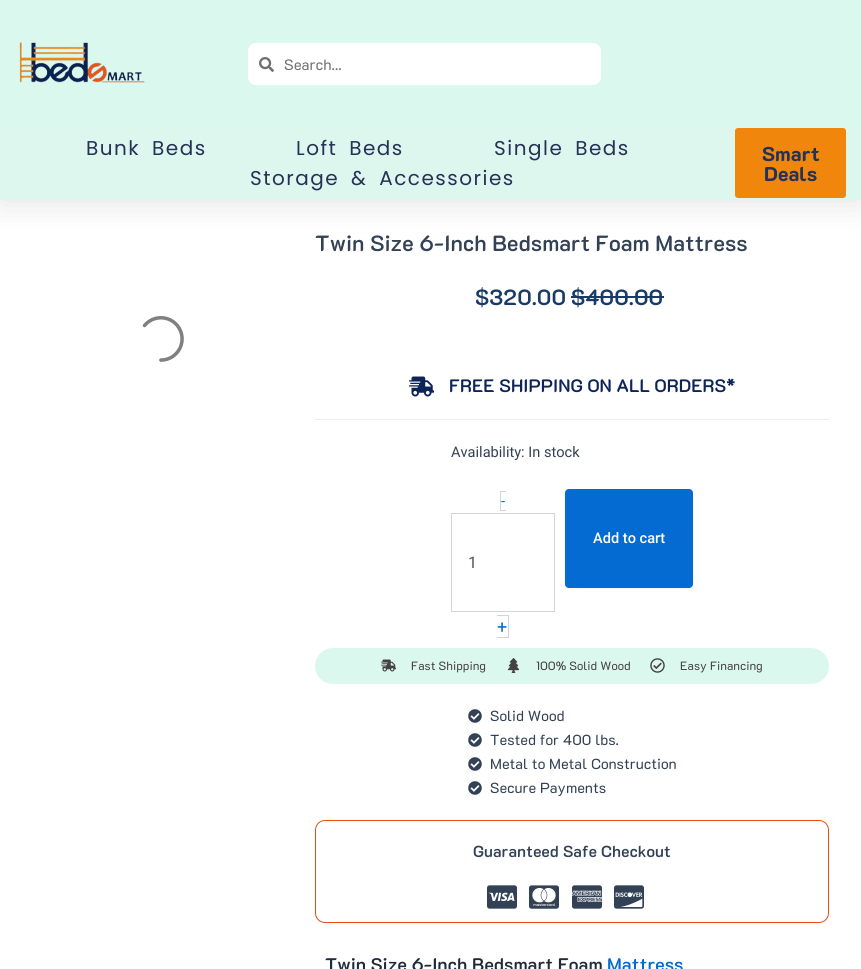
#include <cairo.h>
#include <math.h>
#include <stddef.h>

static cairo_t *ctx;

static void use_color(int r, int g, int b) {
    cairo_set_source_rgb(ctx, r / 255.0, g / 255.0, b / 255.0);
}

static void spaced_text(double x, double y, const char *s, double letter, double word) {
    cairo_move_to(ctx, x, y);
    while (*s) {
        char ch[5] = {0};
        int n = 0;
        do ch[n++] = *s++; while ((*s & 0xC0) == 0x80);
        cairo_show_text(ctx, ch);
        cairo_rel_move_to(ctx, letter + word * (*ch == ' '), 0);
    }
}

static void round_rect(double x, double y, double w, double h, double r) {
    cairo_new_sub_path(ctx);
    cairo_arc(ctx, x + w - r, y + h - r, r, 0, M_PI / 2);
    cairo_arc(ctx, x + r, y + h - r, r, M_PI / 2, M_PI);
    cairo_arc(ctx, x + r, y + r, r, M_PI, 1.5 * M_PI);
    cairo_arc(ctx, x + w - r, y + r, r, 1.5 * M_PI, 2 * M_PI);
    cairo_close_path(ctx);
}

static void shadow(double x, double y, double w, double h, double r, double blur, double alpha) {
    cairo_push_group_with_content(ctx, CAIRO_CONTENT_ALPHA);
    cairo_set_operator(ctx, CAIRO_OPERATOR_SOURCE);
    for (int i = 15; i >= -15 && fmin(w, h) + blur * i / 3 > 0; i -= 2) {
        double e = blur * i / 6;
        cairo_set_source_rgba(ctx, 0, 0, 0, alpha * erfc((i - 1) / 8.5) / 2);
        round_rect(x - e, y - e, w + 2 * e, h + 2 * e, fmax(0, fmin(r + e + blur * .6, fmin(w, h) / 2 + e)));
        cairo_fill(ctx);
    }
    cairo_pattern_t *soft = cairo_pop_group(ctx);
    cairo_mask(ctx, soft);
    cairo_pattern_destroy(soft);
}

static void picture(const char *path, double x, double y, double w, double h) {
    cairo_surface_t *image = cairo_image_surface_create_from_png(path);
    cairo_save(ctx);
    cairo_set_source_surface(ctx, image, x, y);
    cairo_rectangle(ctx, x, y, w, h);
    cairo_fill(ctx);
    cairo_restore(ctx);
    cairo_surface_destroy(image);
}

int main(void) {
    cairo_surface_t *surface = cairo_image_surface_create(CAIRO_FORMAT_RGB24, 861, 969);
    ctx = cairo_create(surface);
    cairo_font_options_t *options = cairo_font_options_create();
    cairo_font_options_set_hint_metrics(options, CAIRO_HINT_METRICS_OFF);
    cairo_font_options_set_hint_style(options, CAIRO_HINT_STYLE_NONE);
    cairo_set_font_options(ctx, options);
    cairo_set_miter_limit(ctx, 4);
    use_color(255, 255, 255);
    cairo_paint(ctx);
    use_color(0, 0, 0);
    shadow(0, 5, 861, 200, 0, 15, 0.1);
    use_color(219, 248, 239);
    cairo_rectangle(ctx, 0, 0, 861, 128);
    cairo_fill(ctx);
    picture("img1.png", 19, 42, 126, 41);
    use_color(255, 255, 255);
    round_rect(248, 43, 353, 42, 8);
    cairo_fill(ctx);
    picture("img2.png", 259, 57, 15, 15);
    cairo_select_font_face(ctx, "K2D", CAIRO_FONT_SLANT_NORMAL, CAIRO_FONT_WEIGHT_NORMAL);
    cairo_set_font_size(ctx, 15);
    use_color(112, 112, 112);
    cairo_move_to(ctx, 284, 70);
    cairo_show_text(ctx, "Search...");
    use_color(221, 246, 238);
    cairo_rectangle(ctx, 0, 128, 861, 70);
    cairo_fill(ctx);
    use_color(219, 248, 239);
    cairo_rectangle(ctx, 0, 198, 861, 2);
    cairo_fill(ctx);
    cairo_select_font_face(ctx, "Poppins", CAIRO_FONT_SLANT_NORMAL, CAIRO_FONT_WEIGHT_NORMAL);
    cairo_set_font_size(ctx, 20);
    use_color(36, 50, 85);
    spaced_text(86, 155, "Bunk Beds", 1.5, 5);
    spaced_text(296, 155, "Loft Beds", 1.5, 5);
    spaced_text(494, 155, "Single Beds", 1.5, 5);
    spaced_text(250, 185, "Storage & Accessories", 1.5, 5);
    use_color(241, 134, 12);
    round_rect(735, 128, 111, 70, 3);
    cairo_fill(ctx);
    cairo_select_font_face(ctx, "K2D ExtraBold", CAIRO_FONT_SLANT_NORMAL, CAIRO_FONT_WEIGHT_NORMAL);
    use_color(36, 50, 85);
    cairo_move_to(ctx, 762, 161);
    cairo_show_text(ctx, "Smart");
    cairo_move_to(ctx, 764, 181);
    cairo_show_text(ctx, "Deals");
    picture("img3.png", 142, 316, 42, 46);
    cairo_select_font_face(ctx, "K2D SemiBold", CAIRO_FONT_SLANT_NORMAL, CAIRO_FONT_WEIGHT_NORMAL);
    cairo_set_font_size(ctx, 22);
    use_color(51, 65, 85);
    cairo_move_to(ctx, 315, 251);
    cairo_show_text(ctx, "Twin Size 6-Inch Bedsmart Foam Mattress");
    use_color(23, 58, 102);
    cairo_move_to(ctx, 475, 305);
    cairo_show_text(ctx, "$320.00");
    cairo_move_to(ctx, 571, 305);
    cairo_show_text(ctx, "$400.00");
    cairo_rectangle(ctx, 571, 296, 93, 2);
    cairo_fill(ctx);
    picture("img4.png", 409, 376, 25, 21);
    cairo_set_font_size(ctx, 18);
    use_color(12, 36, 88);
    cairo_move_to(ctx, 449, 392);
    cairo_show_text(ctx, "FREE SHIPPING ON ALL ORDERS*");
    use_color(238, 238, 238);
    cairo_rectangle(ctx, 315, 419, 514, 1);
    cairo_fill(ctx);
    cairo_select_font_face(ctx, "Roboto", CAIRO_FONT_SLANT_NORMAL, CAIRO_FONT_WEIGHT_NORMAL);
    cairo_set_font_size(ctx, 14.6);
    use_color(51, 65, 85);
    cairo_move_to(ctx, 451, 457);
    cairo_show_text(ctx, "Availability: In stock");
    use_color(4, 107, 210);
    cairo_move_to(ctx, 501, 506);
    cairo_show_text(ctx, "-");
    use_color(209, 213, 219);
    cairo_rectangle(ctx, 500, 491, 6, 1);
    cairo_fill(ctx);
    cairo_rectangle(ctx, 500, 510, 6, 1);
    cairo_fill(ctx);
    cairo_rectangle(ctx, 500, 491, 1, 20);
    cairo_fill(ctx);
    cairo_rectangle(ctx, 451.5, 513.5, 103, 98);
    cairo_set_line_width(ctx, 1);
    cairo_stroke(ctx);
    cairo_set_font_size(ctx, 16);
    use_color(71, 85, 105);
    cairo_move_to(ctx, 468, 568);
    cairo_show_text(ctx, "1");
    cairo_set_font_size(ctx, 18);
    use_color(4, 107, 210);
    cairo_move_to(ctx, 497, 633);
    cairo_show_text(ctx, "+");
    use_color(209, 213, 219);
    cairo_rectangle(ctx, 497, 615, 12, 1);
    cairo_fill(ctx);
    cairo_rectangle(ctx, 508, 615, 1, 23);
    cairo_fill(ctx);
    cairo_rectangle(ctx, 497, 637, 12, 1);
    cairo_fill(ctx);
    use_color(0, 0, 0);
    shadow(565, 490, 128, 99, 4, 1, 0.05);
    use_color(4, 107, 210);
    round_rect(565, 489, 128, 99, 4);
    cairo_fill(ctx);
    cairo_select_font_face(ctx, "Roboto Medium", CAIRO_FONT_SLANT_NORMAL, CAIRO_FONT_WEIGHT_NORMAL);
    cairo_set_font_size(ctx, 14.6);
    use_color(255, 255, 255);
    cairo_move_to(ctx, 593, 543);
    cairo_show_text(ctx, "Add to cart");
    use_color(219, 248, 239);
    round_rect(315, 648, 514, 36, 18);
    cairo_fill(ctx);
    picture("img5.png", 381, 659, 15, 13);
    cairo_select_font_face(ctx, "K2D", CAIRO_FONT_SLANT_NORMAL, CAIRO_FONT_WEIGHT_NORMAL);
    cairo_set_font_size(ctx, 12);
    use_color(69, 65, 65);
    cairo_move_to(ctx, 411, 670);
    cairo_show_text(ctx, "Fast Shipping");
    picture("img6.png", 507, 658, 13, 15);
    cairo_move_to(ctx, 536, 670);
    cairo_show_text(ctx, "100% Solid Wood");
    picture("img7.png", 650, 658, 15, 15);
    cairo_move_to(ctx, 680, 670);
    cairo_show_text(ctx, "Easy Financing");
    picture("img8.png", 468, 709, 14, 14);
    cairo_set_font_size(ctx, 14.6);
    use_color(51, 65, 85);
    cairo_move_to(ctx, 490, 721);
    cairo_show_text(ctx, "Solid Wood");
    picture("img8.png", 468, 733, 14, 14);
    cairo_move_to(ctx, 490, 745);
    cairo_show_text(ctx, "Tested for 400 lbs.");
    picture("img8.png", 468, 757, 14, 14);
    cairo_move_to(ctx, 490, 769);
    cairo_show_text(ctx, "Metal to Metal Construction");
    picture("img8.png", 468, 781, 14, 14);
    cairo_move_to(ctx, 490, 793);
    cairo_show_text(ctx, "Secure Payments");
    round_rect(315.5, 820.5, 513, 102, 9.5);
    use_color(232, 78, 17);
    cairo_stroke(ctx);
    cairo_select_font_face(ctx, "K2D SemiBold", CAIRO_FONT_SLANT_NORMAL, CAIRO_FONT_WEIGHT_NORMAL);
    cairo_set_font_size(ctx, 16);
    use_color(51, 65, 85);
    cairo_move_to(ctx, 473, 857);
    cairo_show_text(ctx, "Guaranteed Safe Checkout");
    picture("img9.png", 487, 885, 30, 24);
    picture("img10.png", 529, 885, 30, 24);
    picture("img11.png", 572, 885, 30, 24);
    picture("img12.png", 614, 885, 30, 24);
    cairo_set_font_size(ctx, 18.25);
    use_color(30, 41, 59);
    cairo_move_to(ctx, 325, 971);
    cairo_show_text(ctx, "Twin Size 6-Inch Bedsmart Foam");
    use_color(4, 107, 210);
    cairo_move_to(ctx, 607, 971);
    cairo_show_text(ctx, "Mattress");
    cairo_surface_write_to_png(surface, "result.png");
    cairo_font_options_destroy(options);
    cairo_destroy(ctx);
    cairo_surface_destroy(surface);
    return 0;
}
